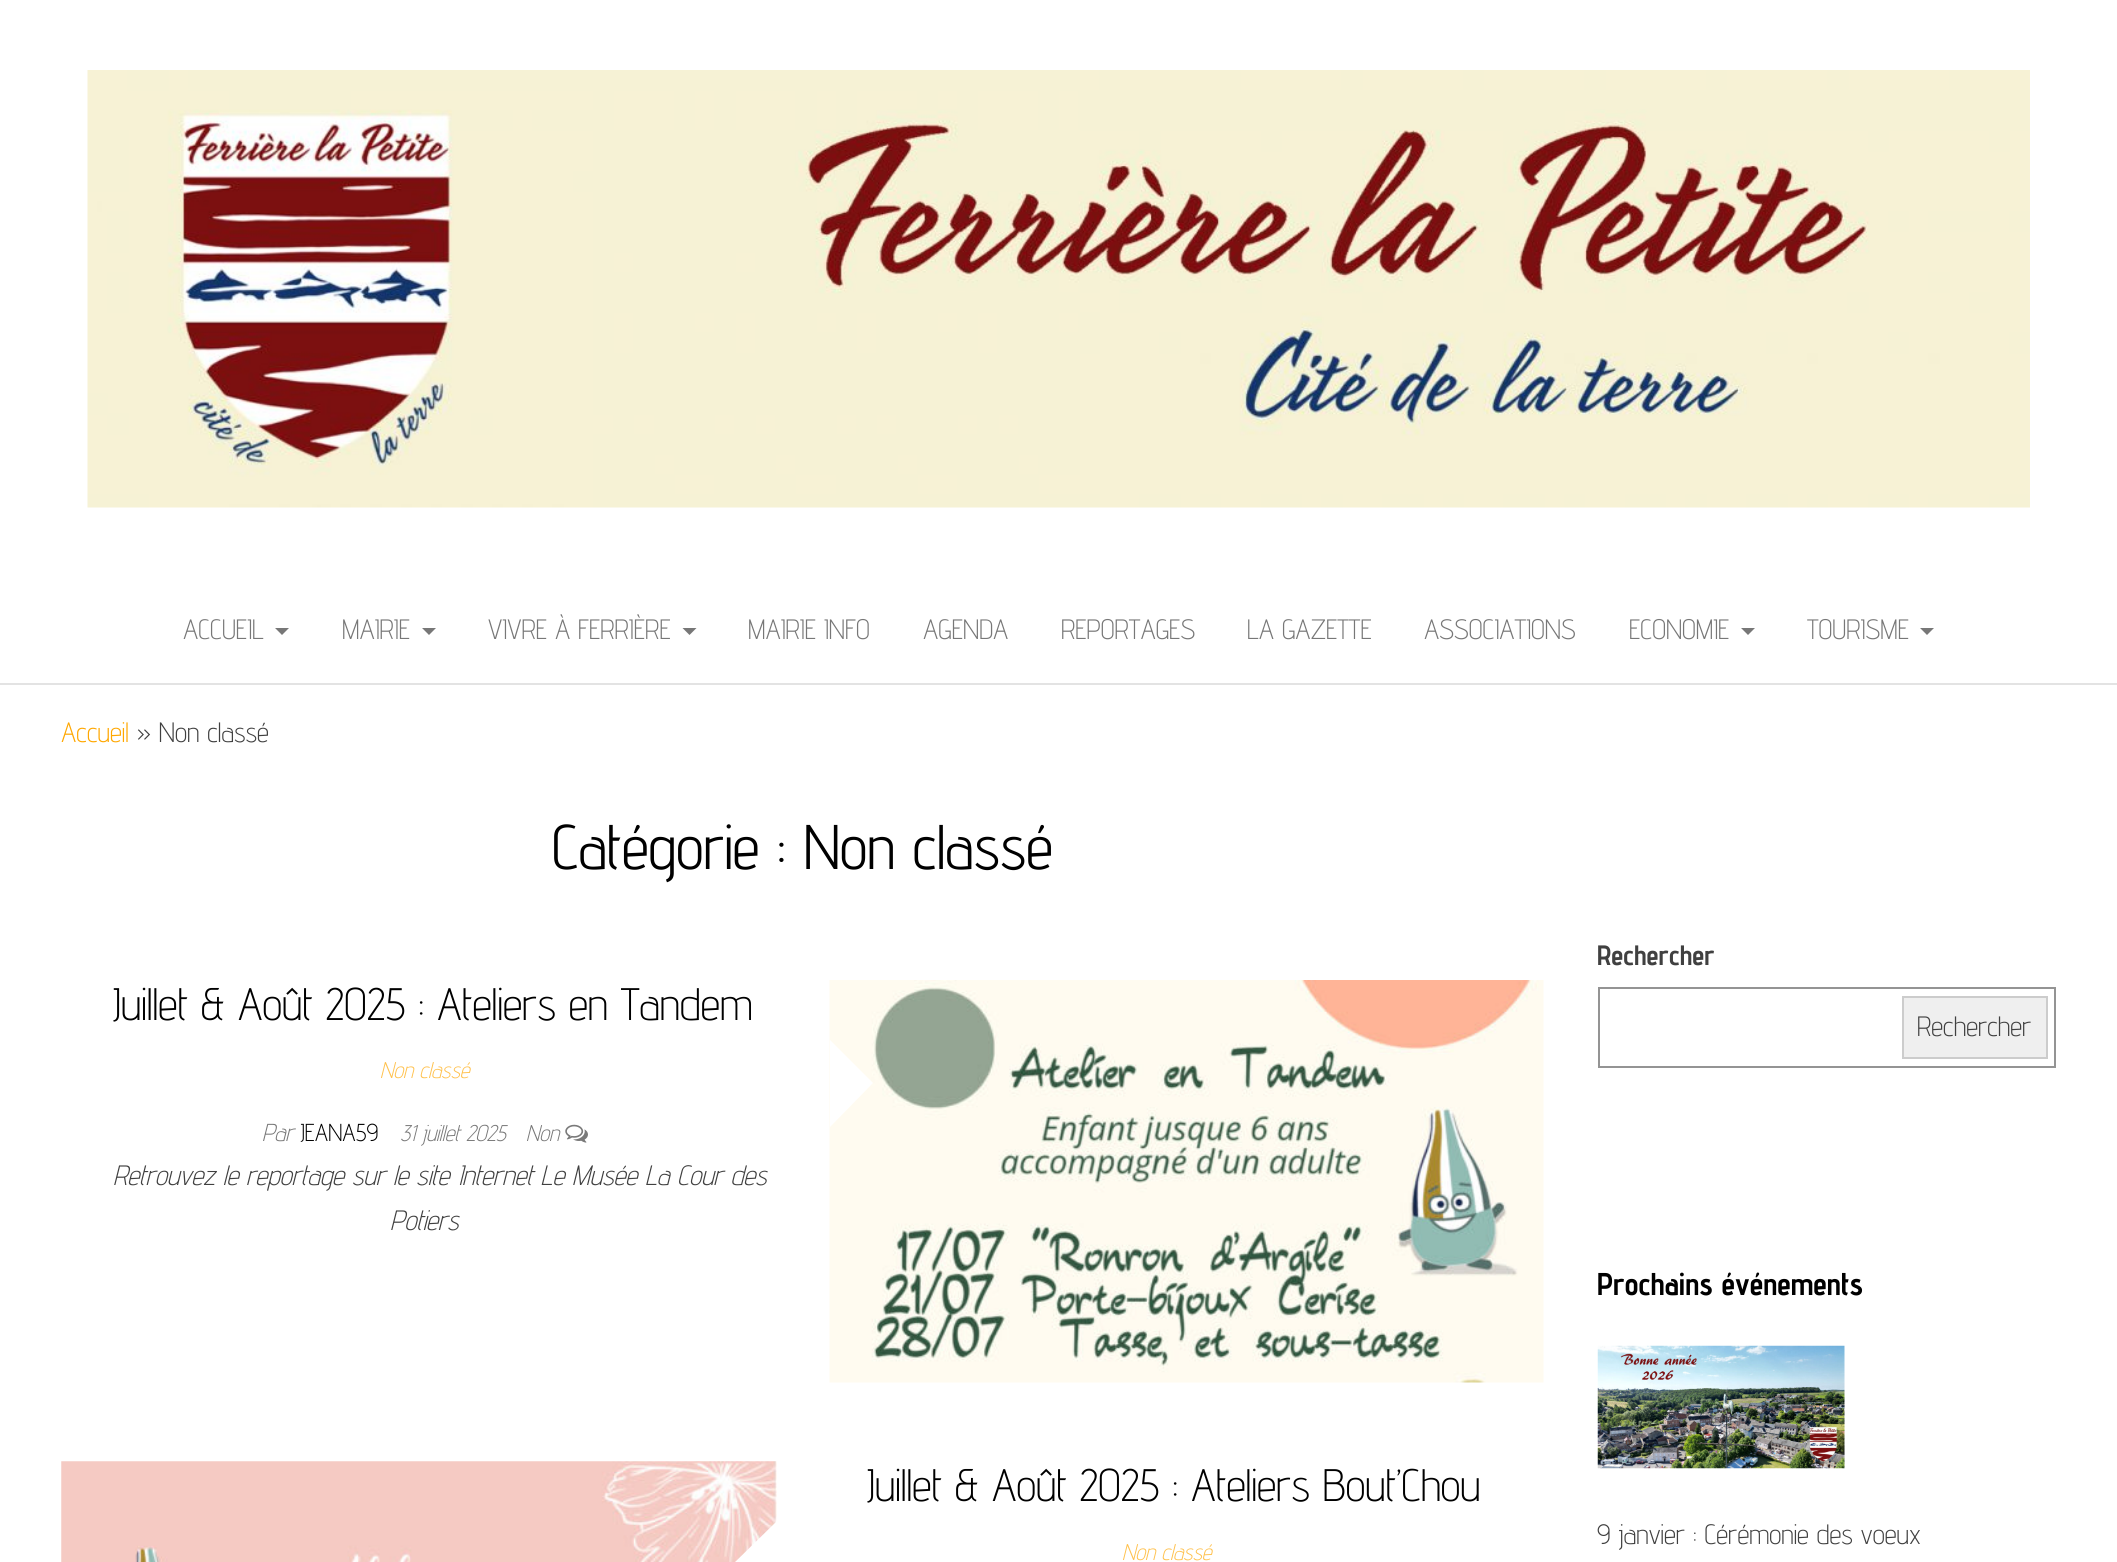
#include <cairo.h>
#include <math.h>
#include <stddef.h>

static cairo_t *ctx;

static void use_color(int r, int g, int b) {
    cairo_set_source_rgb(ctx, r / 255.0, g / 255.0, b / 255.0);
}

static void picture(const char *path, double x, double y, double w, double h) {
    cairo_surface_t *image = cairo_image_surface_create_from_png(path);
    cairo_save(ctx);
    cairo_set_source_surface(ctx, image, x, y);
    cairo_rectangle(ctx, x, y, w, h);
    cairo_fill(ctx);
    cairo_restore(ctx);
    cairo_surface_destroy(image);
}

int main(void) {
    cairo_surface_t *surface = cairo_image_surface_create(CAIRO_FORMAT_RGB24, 2117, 1562);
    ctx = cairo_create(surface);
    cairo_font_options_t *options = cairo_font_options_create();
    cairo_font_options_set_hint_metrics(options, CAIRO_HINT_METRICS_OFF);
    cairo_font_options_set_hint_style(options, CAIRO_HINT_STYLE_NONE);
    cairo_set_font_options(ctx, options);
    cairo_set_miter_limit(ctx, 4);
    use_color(255, 255, 255);
    cairo_paint(ctx);
    picture("img1.png", 87, 70, 1943, 438);
    use_color(227, 227, 227);
    cairo_rectangle(ctx, 0, 683, 2117, 2);
    cairo_fill(ctx);
    cairo_select_font_face(ctx, "Advent Pro Light", CAIRO_FONT_SLANT_NORMAL, CAIRO_FONT_WEIGHT_NORMAL);
    cairo_set_font_size(ctx, 28);
    use_color(119, 119, 119);
    cairo_move_to(ctx, 183, 639);
    cairo_show_text(ctx, "ACCUEIL");
    cairo_new_path(ctx);
    cairo_move_to(ctx, 275, 628);
    cairo_line_to(ctx, 289, 628);
    cairo_line_to(ctx, 282, 635);
    cairo_close_path(ctx);
    cairo_fill(ctx);
    cairo_move_to(ctx, 342, 639);
    cairo_show_text(ctx, "MAIRIE");
    cairo_new_path(ctx);
    cairo_move_to(ctx, 422, 628);
    cairo_line_to(ctx, 436, 628);
    cairo_line_to(ctx, 429, 635);
    cairo_close_path(ctx);
    cairo_fill(ctx);
    cairo_move_to(ctx, 488, 639);
    cairo_show_text(ctx, "VIVRE À FERRIÈRE");
    cairo_new_path(ctx);
    cairo_move_to(ctx, 682.5, 628);
    cairo_line_to(ctx, 696.5, 628);
    cairo_line_to(ctx, 689.5, 635);
    cairo_close_path(ctx);
    cairo_fill(ctx);
    cairo_move_to(ctx, 748, 639);
    cairo_show_text(ctx, "MAIRIE INFO");
    cairo_move_to(ctx, 923, 639);
    cairo_show_text(ctx, "AGENDA");
    cairo_move_to(ctx, 1061, 639);
    cairo_show_text(ctx, "REPORTAGES");
    cairo_move_to(ctx, 1247, 639);
    cairo_show_text(ctx, "LA GAZETTE");
    cairo_move_to(ctx, 1424, 639);
    cairo_show_text(ctx, "ASSOCIATIONS");
    cairo_move_to(ctx, 1629, 639);
    cairo_show_text(ctx, "ECONOMIE");
    cairo_new_path(ctx);
    cairo_move_to(ctx, 1741, 628);
    cairo_line_to(ctx, 1755, 628);
    cairo_line_to(ctx, 1748, 635);
    cairo_close_path(ctx);
    cairo_fill(ctx);
    cairo_move_to(ctx, 1807, 639);
    cairo_show_text(ctx, "TOURISME");
    cairo_new_path(ctx);
    cairo_move_to(ctx, 1920, 628);
    cairo_line_to(ctx, 1934, 628);
    cairo_line_to(ctx, 1927, 635);
    cairo_close_path(ctx);
    cairo_fill(ctx);
    use_color(255, 167, 0);
    cairo_move_to(ctx, 61, 742);
    cairo_show_text(ctx, "Accueil");
    use_color(64, 64, 64);
    cairo_move_to(ctx, 137, 742);
    cairo_show_text(ctx, "» Non classé");
    cairo_select_font_face(ctx, "Advent Pro", CAIRO_FONT_SLANT_NORMAL, CAIRO_FONT_WEIGHT_NORMAL);
    cairo_set_font_size(ctx, 63);
    use_color(0, 0, 0);
    cairo_move_to(ctx, 552, 869);
    cairo_show_text(ctx, "Catégorie : Non classé");
    cairo_select_font_face(ctx, "Advent Pro Light", CAIRO_FONT_SLANT_NORMAL, CAIRO_FONT_WEIGHT_NORMAL);
    cairo_set_font_size(ctx, 45.5);
    cairo_move_to(ctx, 112, 1020);
    cairo_show_text(ctx, "Juillet & Août 2025 : Ateliers en Tandem");
    cairo_select_font_face(ctx, "Advent Pro Light", CAIRO_FONT_SLANT_ITALIC, CAIRO_FONT_WEIGHT_NORMAL);
    cairo_set_font_size(ctx, 22.75);
    use_color(255, 193, 77);
    cairo_move_to(ctx, 380, 1078);
    cairo_show_text(ctx, "Non classé");
    cairo_set_font_size(ctx, 24.5);
    use_color(119, 119, 119);
    cairo_move_to(ctx, 262, 1141);
    cairo_show_text(ctx, "Par");
    cairo_select_font_face(ctx, "Advent Pro Light", CAIRO_FONT_SLANT_NORMAL, CAIRO_FONT_WEIGHT_NORMAL);
    use_color(0, 0, 0);
    cairo_move_to(ctx, 300, 1141);
    cairo_show_text(ctx, "JEANA59");
    cairo_select_font_face(ctx, "Advent Pro Light", CAIRO_FONT_SLANT_ITALIC, CAIRO_FONT_WEIGHT_NORMAL);
    cairo_set_font_size(ctx, 22.75);
    use_color(119, 119, 119);
    cairo_move_to(ctx, 400, 1141);
    cairo_show_text(ctx, "31 juillet 2025");
    cairo_move_to(ctx, 526, 1141);
    cairo_show_text(ctx, "Non");
    picture("img2.png", 565, 1124, 23, 19);
    cairo_set_font_size(ctx, 28);
    use_color(64, 64, 64);
    cairo_move_to(ctx, 113, 1185);
    cairo_show_text(ctx, "Retrouvez le reportage sur le site Internet Le Musée La Cour des");
    cairo_move_to(ctx, 390, 1230);
    cairo_show_text(ctx, "Potiers");
    picture("img3.png", 829, 980, 715, 403);
    use_color(255, 255, 255);
    cairo_new_path(ctx);
    cairo_move_to(ctx, 830, 1127);
    cairo_line_to(ctx, 830, 1040);
    cairo_line_to(ctx, 873, 1083);
    cairo_close_path(ctx);
    cairo_fill(ctx);
    picture("img4.png", 61, 1461, 716, 101);
    cairo_new_path(ctx);
    cairo_move_to(ctx, 777, 1521);
    cairo_line_to(ctx, 777, 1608);
    cairo_line_to(ctx, 733, 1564);
    cairo_close_path(ctx);
    cairo_fill(ctx);
    cairo_select_font_face(ctx, "Advent Pro Light", CAIRO_FONT_SLANT_NORMAL, CAIRO_FONT_WEIGHT_NORMAL);
    cairo_set_font_size(ctx, 45.5);
    use_color(0, 0, 0);
    cairo_move_to(ctx, 866, 1501);
    cairo_show_text(ctx, "Juillet & Août 2025 : Ateliers Bout’Chou");
    cairo_select_font_face(ctx, "Advent Pro Light", CAIRO_FONT_SLANT_ITALIC, CAIRO_FONT_WEIGHT_NORMAL);
    cairo_set_font_size(ctx, 22.75);
    use_color(255, 193, 77);
    cairo_move_to(ctx, 1122, 1560);
    cairo_show_text(ctx, "Non classé");
    cairo_select_font_face(ctx, "Advent Pro", CAIRO_FONT_SLANT_NORMAL, CAIRO_FONT_WEIGHT_BOLD);
    cairo_set_font_size(ctx, 28);
    use_color(64, 64, 64);
    cairo_move_to(ctx, 1597, 965);
    cairo_show_text(ctx, "Rechercher");
    cairo_rectangle(ctx, 1599, 988, 456, 79);
    use_color(148, 148, 148);
    cairo_stroke(ctx);
    use_color(239, 239, 239);
    cairo_rectangle(ctx, 1903, 997, 144, 61);
    cairo_fill_preserve(ctx);
    use_color(204, 204, 204);
    cairo_stroke(ctx);
    cairo_select_font_face(ctx, "Advent Pro Light", CAIRO_FONT_SLANT_NORMAL, CAIRO_FONT_WEIGHT_NORMAL);
    use_color(64, 64, 64);
    cairo_move_to(ctx, 1917, 1036);
    cairo_show_text(ctx, "Rechercher");
    cairo_select_font_face(ctx, "Advent Pro", CAIRO_FONT_SLANT_NORMAL, CAIRO_FONT_WEIGHT_BOLD);
    cairo_set_font_size(ctx, 31.5);
    use_color(0, 0, 0);
    cairo_move_to(ctx, 1597, 1295);
    cairo_show_text(ctx, "Prochains événements");
    picture("img5.png", 1597, 1345, 248, 124);
    cairo_select_font_face(ctx, "Advent Pro Light", CAIRO_FONT_SLANT_NORMAL, CAIRO_FONT_WEIGHT_NORMAL);
    cairo_set_font_size(ctx, 28);
    use_color(64, 64, 64);
    cairo_move_to(ctx, 1597, 1544);
    cairo_show_text(ctx, "9 janvier : Cérémonie des voeux");
    cairo_surface_write_to_png(surface, "result.png");
    cairo_font_options_destroy(options);
    cairo_destroy(ctx);
    cairo_surface_destroy(surface);
    return 0;
}
